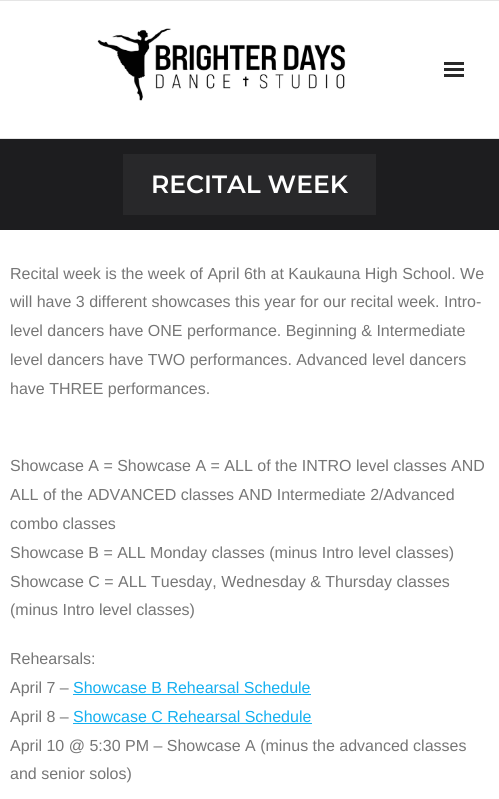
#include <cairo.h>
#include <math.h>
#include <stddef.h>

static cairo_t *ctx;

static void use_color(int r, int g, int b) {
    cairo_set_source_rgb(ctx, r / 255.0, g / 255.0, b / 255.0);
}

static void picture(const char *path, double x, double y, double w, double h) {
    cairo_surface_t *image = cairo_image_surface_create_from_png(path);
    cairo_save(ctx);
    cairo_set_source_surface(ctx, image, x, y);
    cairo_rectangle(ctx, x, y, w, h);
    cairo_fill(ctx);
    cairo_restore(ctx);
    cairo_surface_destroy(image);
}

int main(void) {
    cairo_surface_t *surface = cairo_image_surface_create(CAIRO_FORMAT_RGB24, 499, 799);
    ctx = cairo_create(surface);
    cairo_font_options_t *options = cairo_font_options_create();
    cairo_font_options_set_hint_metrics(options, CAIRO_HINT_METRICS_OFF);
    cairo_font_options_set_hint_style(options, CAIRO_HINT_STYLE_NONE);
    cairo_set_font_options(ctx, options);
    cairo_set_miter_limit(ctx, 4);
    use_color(255, 255, 255);
    cairo_paint(ctx);
    use_color(229, 229, 229);
    cairo_rectangle(ctx, 0, 0, 499, 1);
    cairo_fill(ctx);
    cairo_rectangle(ctx, 0, 138, 499, 1);
    cairo_fill(ctx);
    picture("img1.png", 97, 28, 249, 73);
    use_color(41, 41, 41);
    cairo_rectangle(ctx, 444, 62, 20, 3);
    cairo_fill(ctx);
    cairo_rectangle(ctx, 444, 68, 20, 3);
    cairo_fill(ctx);
    cairo_rectangle(ctx, 444, 74, 20, 3);
    cairo_fill(ctx);
    use_color(29, 29, 31);
    cairo_rectangle(ctx, 0, 139, 499, 91);
    cairo_fill(ctx);
    use_color(40, 40, 42);
    cairo_rectangle(ctx, 123, 154, 253, 61);
    cairo_fill(ctx);
    cairo_select_font_face(ctx, "Montserrat SemiBold", CAIRO_FONT_SLANT_NORMAL, CAIRO_FONT_WEIGHT_NORMAL);
    cairo_set_font_size(ctx, 25);
    use_color(255, 255, 255);
    cairo_move_to(ctx, 151, 193);
    cairo_show_text(ctx, "RECITAL WEEK");
    cairo_select_font_face(ctx, "Liberation Sans", CAIRO_FONT_SLANT_NORMAL, CAIRO_FONT_WEIGHT_NORMAL);
    cairo_set_font_size(ctx, 16);
    use_color(118, 118, 118);
    cairo_move_to(ctx, 10, 279);
    cairo_show_text(ctx, "Recital week is the week of April 6th at Kaukauna High School. We");
    cairo_move_to(ctx, 10, 307);
    cairo_show_text(ctx, "will have 3 different showcases this year for our recital week. Intro-");
    cairo_move_to(ctx, 10, 336);
    cairo_show_text(ctx, "level dancers have ONE performance. Beginning & Intermediate");
    cairo_move_to(ctx, 10, 365);
    cairo_show_text(ctx, "level dancers have TWO performances. Advanced level dancers");
    cairo_move_to(ctx, 10, 394);
    cairo_show_text(ctx, "have THREE performances.");
    cairo_move_to(ctx, 10, 471);
    cairo_show_text(ctx, "Showcase A = Showcase A = ALL of the INTRO level classes AND");
    cairo_move_to(ctx, 10, 500);
    cairo_show_text(ctx, "ALL of the ADVANCED classes AND Intermediate 2/Advanced");
    cairo_move_to(ctx, 10, 529);
    cairo_show_text(ctx, "combo classes");
    cairo_move_to(ctx, 10, 558);
    cairo_show_text(ctx, "Showcase B = ALL Monday classes (minus Intro level classes)");
    cairo_move_to(ctx, 10, 587);
    cairo_show_text(ctx, "Showcase C = ALL Tuesday, Wednesday & Thursday classes");
    cairo_move_to(ctx, 10, 615);
    cairo_show_text(ctx, "(minus Intro level classes)");
    cairo_move_to(ctx, 10, 664);
    cairo_show_text(ctx, "Rehearsals:");
    cairo_move_to(ctx, 10, 693);
    cairo_show_text(ctx, "April 7 –");
    use_color(19, 175, 240);
    cairo_move_to(ctx, 73, 693);
    cairo_show_text(ctx, "Showcase B Rehearsal Schedule");
    cairo_rectangle(ctx, 73, 694, 238, 1);
    cairo_fill(ctx);
    use_color(118, 118, 118);
    cairo_move_to(ctx, 10, 722);
    cairo_show_text(ctx, "April 8 –");
    use_color(19, 175, 240);
    cairo_move_to(ctx, 73, 722);
    cairo_show_text(ctx, "Showcase C Rehearsal Schedule");
    cairo_rectangle(ctx, 73, 723, 239, 1);
    cairo_fill(ctx);
    use_color(118, 118, 118);
    cairo_move_to(ctx, 10, 751);
    cairo_show_text(ctx, "April 10 @ 5:30 PM – Showcase A (minus the advanced classes");
    cairo_move_to(ctx, 10, 779);
    cairo_show_text(ctx, "and senior solos)");
    cairo_surface_write_to_png(surface, "result.png");
    cairo_font_options_destroy(options);
    cairo_destroy(ctx);
    cairo_surface_destroy(surface);
    return 0;
}
